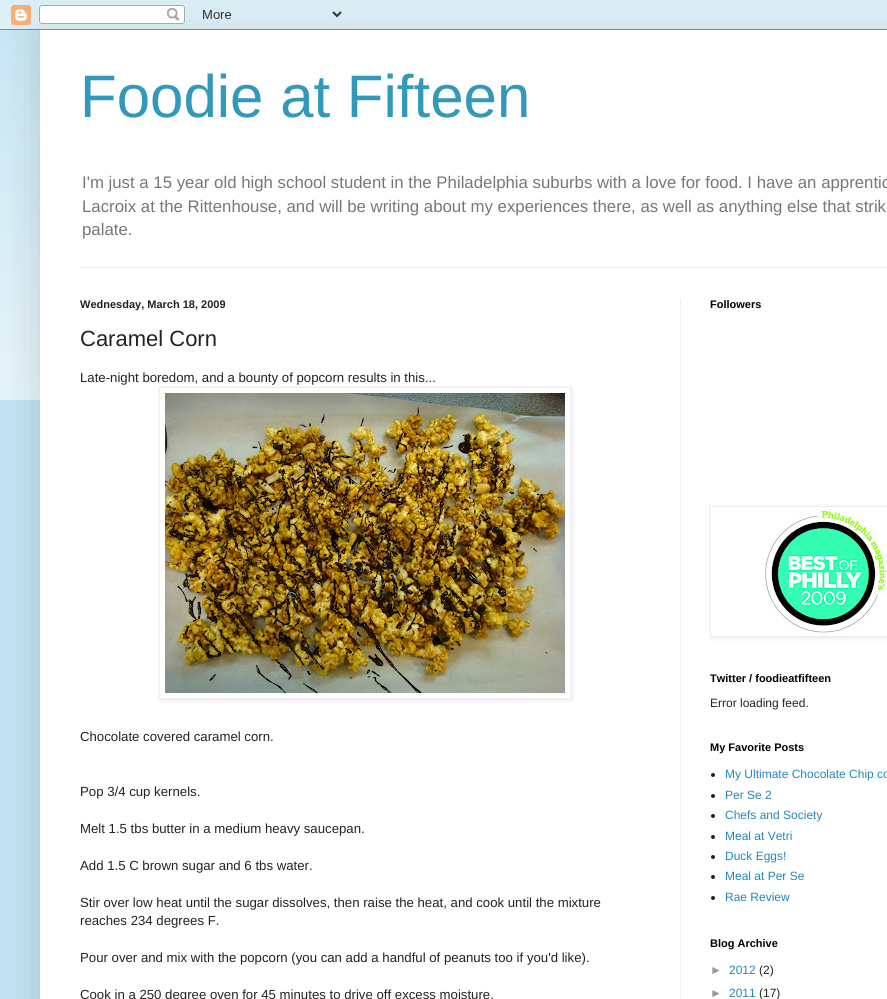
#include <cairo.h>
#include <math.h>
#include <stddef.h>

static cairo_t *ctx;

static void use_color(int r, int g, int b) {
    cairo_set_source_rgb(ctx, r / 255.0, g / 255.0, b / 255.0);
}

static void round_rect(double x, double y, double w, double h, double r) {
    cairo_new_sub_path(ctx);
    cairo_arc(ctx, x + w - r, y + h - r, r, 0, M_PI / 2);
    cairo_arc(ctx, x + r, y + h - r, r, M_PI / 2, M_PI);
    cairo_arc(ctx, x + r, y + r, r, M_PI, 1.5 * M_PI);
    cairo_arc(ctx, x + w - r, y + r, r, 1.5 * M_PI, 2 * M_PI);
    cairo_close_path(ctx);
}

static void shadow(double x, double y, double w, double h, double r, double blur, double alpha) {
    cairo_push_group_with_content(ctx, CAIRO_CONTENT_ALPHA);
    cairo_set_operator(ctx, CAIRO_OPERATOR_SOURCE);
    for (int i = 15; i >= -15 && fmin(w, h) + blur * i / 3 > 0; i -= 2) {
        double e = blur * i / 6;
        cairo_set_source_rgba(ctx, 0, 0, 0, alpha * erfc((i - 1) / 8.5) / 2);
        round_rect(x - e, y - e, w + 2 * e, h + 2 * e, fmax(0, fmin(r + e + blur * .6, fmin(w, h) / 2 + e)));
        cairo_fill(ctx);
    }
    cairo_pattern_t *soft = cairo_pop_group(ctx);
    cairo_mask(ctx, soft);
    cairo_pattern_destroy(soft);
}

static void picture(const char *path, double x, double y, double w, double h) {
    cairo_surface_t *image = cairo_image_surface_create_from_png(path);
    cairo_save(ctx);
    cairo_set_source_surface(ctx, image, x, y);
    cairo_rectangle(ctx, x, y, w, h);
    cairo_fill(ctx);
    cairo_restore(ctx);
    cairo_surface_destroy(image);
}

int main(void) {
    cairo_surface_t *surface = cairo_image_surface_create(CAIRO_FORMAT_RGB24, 887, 999);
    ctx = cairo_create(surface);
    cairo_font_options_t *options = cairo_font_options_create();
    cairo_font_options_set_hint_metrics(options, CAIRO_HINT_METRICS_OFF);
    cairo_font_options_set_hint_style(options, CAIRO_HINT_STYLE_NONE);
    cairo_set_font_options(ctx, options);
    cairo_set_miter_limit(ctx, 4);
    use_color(194, 228, 242);
    cairo_paint(ctx);
    picture("img2.png", 0, 10, 887, 390);
    use_color(0, 0, 0);
    shadow(40, 30, 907, 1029, 0, 20, 0.15);
    picture("img1.png", 0, 0, 887, 30);
    use_color(255, 255, 255);
    cairo_rectangle(ctx, 40, 30, 847, 969);
    cairo_fill(ctx);
    cairo_select_font_face(ctx, "Liberation Sans", CAIRO_FONT_SLANT_NORMAL, CAIRO_FONT_WEIGHT_NORMAL);
    cairo_set_font_size(ctx, 60);
    use_color(51, 153, 187);
    cairo_move_to(ctx, 80, 117);
    cairo_show_text(ctx, "Foodie at Fifteen");
    cairo_set_font_size(ctx, 16.8);
    use_color(119, 119, 119);
    cairo_move_to(ctx, 82, 188);
    cairo_show_text(ctx, "I'm just a 15 year old high school student in the Philadelphia suburbs with a love for food. I have an apprentic");
    cairo_move_to(ctx, 82, 212);
    cairo_show_text(ctx, "Lacroix at the Rittenhouse, and will be writing about my experiences there, as well as anything else that strik");
    cairo_move_to(ctx, 82, 235);
    cairo_show_text(ctx, "palate.");
    use_color(238, 238, 238);
    cairo_rectangle(ctx, 80, 267, 807, 1);
    cairo_fill(ctx);
    cairo_rectangle(ctx, 680, 298, 1, 701);
    cairo_fill(ctx);
    cairo_select_font_face(ctx, "Liberation Sans", CAIRO_FONT_SLANT_NORMAL, CAIRO_FONT_WEIGHT_BOLD);
    cairo_set_font_size(ctx, 11);
    use_color(34, 34, 34);
    cairo_move_to(ctx, 80, 308);
    cairo_show_text(ctx, "Wednesday, March 18, 2009");
    cairo_select_font_face(ctx, "Liberation Sans", CAIRO_FONT_SLANT_NORMAL, CAIRO_FONT_WEIGHT_NORMAL);
    cairo_set_font_size(ctx, 22);
    cairo_move_to(ctx, 80, 346);
    cairo_show_text(ctx, "Caramel Corn");
    cairo_save(ctx);
    cairo_set_fill_rule(ctx, CAIRO_FILL_RULE_EVEN_ODD);
    cairo_new_path(ctx);
    cairo_move_to(ctx, 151, 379);
    cairo_line_to(ctx, 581, 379);
    cairo_line_to(ctx, 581, 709);
    cairo_line_to(ctx, 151, 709);
    cairo_close_path(ctx);
    cairo_move_to(ctx, 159, 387);
    cairo_line_to(ctx, 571, 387);
    cairo_line_to(ctx, 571, 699);
    cairo_line_to(ctx, 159, 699);
    cairo_close_path(ctx);
    cairo_clip(ctx);
    use_color(0, 0, 0);
    shadow(160, 388, 412, 312, 0, 2.5, 0.1);
    cairo_restore(ctx);
    cairo_set_font_size(ctx, 13.2);
    cairo_move_to(ctx, 80, 382);
    cairo_show_text(ctx, "Late-night boredom, and a bounty of popcorn results in this...");
    cairo_rectangle(ctx, 159.5, 387.5, 411, 311);
    use_color(238, 238, 238);
    cairo_set_line_width(ctx, 1);
    cairo_stroke(ctx);
    picture("img3.png", 165, 393, 400, 300);
    use_color(34, 34, 34);
    cairo_move_to(ctx, 80, 741);
    cairo_show_text(ctx, "Chocolate covered caramel corn.");
    cairo_move_to(ctx, 80, 796);
    cairo_show_text(ctx, "Pop 3/4 cup kernels.");
    cairo_move_to(ctx, 80, 833);
    cairo_show_text(ctx, "Melt 1.5 tbs butter in a medium heavy saucepan.");
    cairo_move_to(ctx, 80, 870);
    cairo_show_text(ctx, "Add 1.5 C brown sugar and 6 tbs water.");
    cairo_move_to(ctx, 80, 907);
    cairo_show_text(ctx, "Stir over low heat until the sugar dissolves, then raise the heat, and cook until the mixture");
    cairo_move_to(ctx, 80, 925);
    cairo_show_text(ctx, "reaches 234 degrees F.");
    cairo_move_to(ctx, 80, 962);
    cairo_show_text(ctx, "Pour over and mix with the popcorn (you can add a handful of peanuts too if you'd like).");
    cairo_move_to(ctx, 80, 999);
    cairo_show_text(ctx, "Cook in a 250 degree oven for 45 minutes to drive off excess moisture.");
    cairo_select_font_face(ctx, "Liberation Sans", CAIRO_FONT_SLANT_NORMAL, CAIRO_FONT_WEIGHT_BOLD);
    cairo_set_font_size(ctx, 11);
    use_color(0, 0, 0);
    cairo_move_to(ctx, 710, 308);
    cairo_show_text(ctx, "Followers");
    cairo_save(ctx);
    cairo_set_fill_rule(ctx, CAIRO_FILL_RULE_EVEN_ODD);
    cairo_new_path(ctx);
    cairo_move_to(ctx, 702, 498);
    cairo_line_to(ctx, 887, 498);
    cairo_line_to(ctx, 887, 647);
    cairo_line_to(ctx, 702, 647);
    cairo_close_path(ctx);
    cairo_move_to(ctx, 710, 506);
    cairo_line_to(ctx, 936, 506);
    cairo_line_to(ctx, 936, 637);
    cairo_line_to(ctx, 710, 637);
    cairo_close_path(ctx);
    cairo_clip(ctx);
    use_color(0, 0, 0);
    shadow(711, 507, 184, 131, 0, 2.5, 0.1);
    cairo_restore(ctx);
    cairo_rectangle(ctx, 710.5, 506.5, 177, 130);
    use_color(238, 238, 238);
    cairo_stroke(ctx);
    picture("img4.png", 765, 509, 122, 124);
    use_color(0, 0, 0);
    cairo_move_to(ctx, 710, 682);
    cairo_show_text(ctx, "Twitter / foodieatfifteen");
    cairo_select_font_face(ctx, "Liberation Sans", CAIRO_FONT_SLANT_NORMAL, CAIRO_FONT_WEIGHT_NORMAL);
    cairo_set_font_size(ctx, 12);
    use_color(34, 34, 34);
    cairo_move_to(ctx, 710, 707);
    cairo_show_text(ctx, "Error loading feed.");
    cairo_select_font_face(ctx, "Liberation Sans", CAIRO_FONT_SLANT_NORMAL, CAIRO_FONT_WEIGHT_BOLD);
    cairo_set_font_size(ctx, 11);
    use_color(0, 0, 0);
    cairo_move_to(ctx, 710, 751);
    cairo_show_text(ctx, "My Favorite Posts");
    use_color(34, 34, 34);
    cairo_new_path(ctx);
    cairo_arc(ctx, 713, 775, 2, 0, 2 * M_PI);
    cairo_fill(ctx);
    cairo_select_font_face(ctx, "Liberation Sans", CAIRO_FONT_SLANT_NORMAL, CAIRO_FONT_WEIGHT_NORMAL);
    cairo_set_font_size(ctx, 12);
    use_color(34, 136, 187);
    cairo_move_to(ctx, 725, 778);
    cairo_show_text(ctx, "My Ultimate Chocolate Chip co");
    use_color(34, 34, 34);
    cairo_new_path(ctx);
    cairo_arc(ctx, 713, 796, 2, 0, 2 * M_PI);
    cairo_fill(ctx);
    use_color(34, 136, 187);
    cairo_move_to(ctx, 725, 799);
    cairo_show_text(ctx, "Per Se 2");
    use_color(34, 34, 34);
    cairo_new_path(ctx);
    cairo_arc(ctx, 713, 816, 2, 0, 2 * M_PI);
    cairo_fill(ctx);
    use_color(34, 136, 187);
    cairo_move_to(ctx, 725, 819);
    cairo_show_text(ctx, "Chefs and Society");
    use_color(34, 34, 34);
    cairo_new_path(ctx);
    cairo_arc(ctx, 713, 837, 2, 0, 2 * M_PI);
    cairo_fill(ctx);
    use_color(34, 136, 187);
    cairo_move_to(ctx, 725, 840);
    cairo_show_text(ctx, "Meal at Vetri");
    use_color(34, 34, 34);
    cairo_new_path(ctx);
    cairo_arc(ctx, 713, 857, 2, 0, 2 * M_PI);
    cairo_fill(ctx);
    use_color(34, 136, 187);
    cairo_move_to(ctx, 725, 860);
    cairo_show_text(ctx, "Duck Eggs!");
    use_color(34, 34, 34);
    cairo_new_path(ctx);
    cairo_arc(ctx, 713, 877, 2, 0, 2 * M_PI);
    cairo_fill(ctx);
    use_color(34, 136, 187);
    cairo_move_to(ctx, 725, 880);
    cairo_show_text(ctx, "Meal at Per Se");
    use_color(34, 34, 34);
    cairo_new_path(ctx);
    cairo_arc(ctx, 713, 898, 2, 0, 2 * M_PI);
    cairo_fill(ctx);
    use_color(34, 136, 187);
    cairo_move_to(ctx, 725, 901);
    cairo_show_text(ctx, "Rae Review");
    cairo_select_font_face(ctx, "Liberation Sans", CAIRO_FONT_SLANT_NORMAL, CAIRO_FONT_WEIGHT_BOLD);
    cairo_set_font_size(ctx, 11);
    use_color(0, 0, 0);
    cairo_move_to(ctx, 710, 947);
    cairo_show_text(ctx, "Blog Archive");
    cairo_select_font_face(ctx, "Liberation Sans", CAIRO_FONT_SLANT_NORMAL, CAIRO_FONT_WEIGHT_NORMAL);
    cairo_set_font_size(ctx, 12);
    use_color(153, 153, 153);
    cairo_move_to(ctx, 710, 974);
    cairo_show_text(ctx, "►");
    use_color(34, 136, 187);
    cairo_move_to(ctx, 729, 974);
    cairo_show_text(ctx, "2012");
    use_color(34, 34, 34);
    cairo_move_to(ctx, 759, 974);
    cairo_show_text(ctx, "(2)");
    use_color(153, 153, 153);
    cairo_move_to(ctx, 710, 997);
    cairo_show_text(ctx, "►");
    use_color(34, 136, 187);
    cairo_move_to(ctx, 729, 997);
    cairo_show_text(ctx, "2011");
    use_color(34, 34, 34);
    cairo_move_to(ctx, 759, 997);
    cairo_show_text(ctx, "(17)");
    cairo_surface_write_to_png(surface, "result.png");
    cairo_font_options_destroy(options);
    cairo_destroy(ctx);
    cairo_surface_destroy(surface);
    return 0;
}
